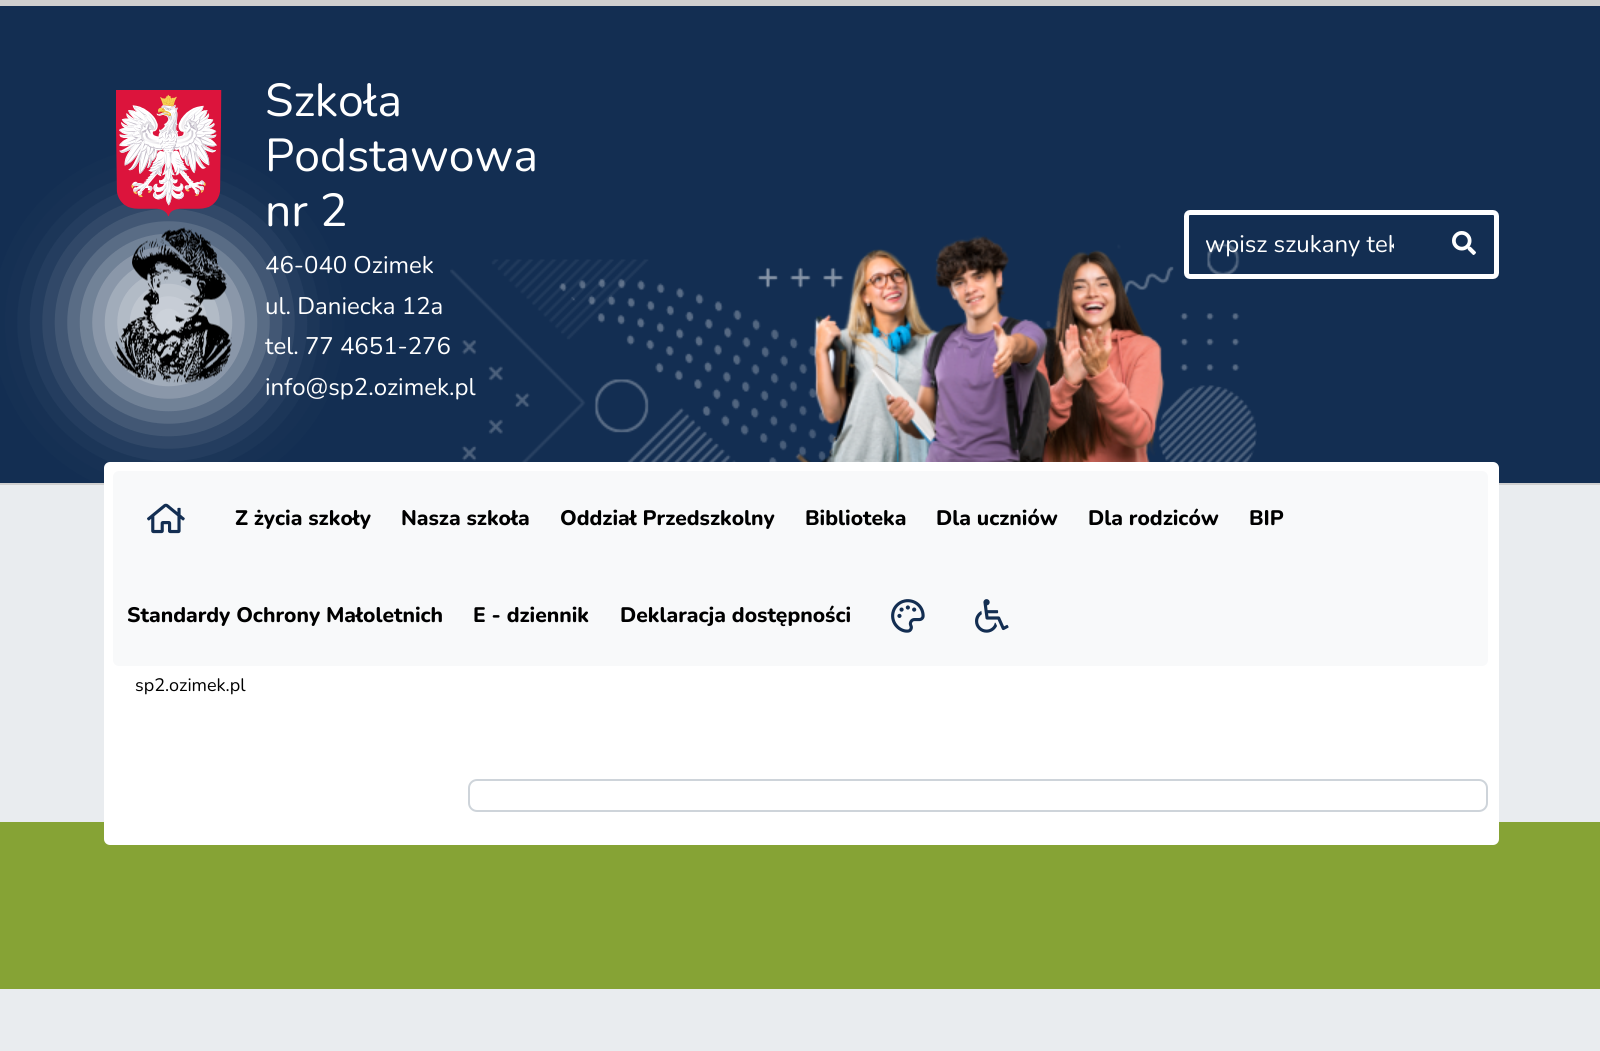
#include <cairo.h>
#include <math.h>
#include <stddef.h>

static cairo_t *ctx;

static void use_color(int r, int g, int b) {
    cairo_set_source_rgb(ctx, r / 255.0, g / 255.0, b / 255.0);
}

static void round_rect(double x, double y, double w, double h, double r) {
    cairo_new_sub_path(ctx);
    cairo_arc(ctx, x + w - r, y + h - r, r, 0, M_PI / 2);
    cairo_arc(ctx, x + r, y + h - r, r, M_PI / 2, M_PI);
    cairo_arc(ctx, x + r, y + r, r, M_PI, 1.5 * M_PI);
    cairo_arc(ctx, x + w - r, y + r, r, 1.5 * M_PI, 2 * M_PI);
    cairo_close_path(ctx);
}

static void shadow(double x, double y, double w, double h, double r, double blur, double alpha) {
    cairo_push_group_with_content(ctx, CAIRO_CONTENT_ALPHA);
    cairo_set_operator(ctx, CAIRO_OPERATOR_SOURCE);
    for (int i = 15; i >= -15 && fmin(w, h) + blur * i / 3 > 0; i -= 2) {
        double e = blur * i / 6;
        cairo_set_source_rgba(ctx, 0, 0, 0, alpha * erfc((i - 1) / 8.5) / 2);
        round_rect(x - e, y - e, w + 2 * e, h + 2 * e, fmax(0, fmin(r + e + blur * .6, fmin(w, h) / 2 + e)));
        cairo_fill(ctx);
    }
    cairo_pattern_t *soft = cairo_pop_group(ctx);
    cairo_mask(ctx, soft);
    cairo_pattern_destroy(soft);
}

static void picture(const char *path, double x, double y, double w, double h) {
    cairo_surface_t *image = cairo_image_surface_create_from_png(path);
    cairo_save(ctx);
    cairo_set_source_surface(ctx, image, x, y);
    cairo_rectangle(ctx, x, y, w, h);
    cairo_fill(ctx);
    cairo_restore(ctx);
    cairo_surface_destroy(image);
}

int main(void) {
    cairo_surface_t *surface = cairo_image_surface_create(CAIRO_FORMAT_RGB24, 1600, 1051);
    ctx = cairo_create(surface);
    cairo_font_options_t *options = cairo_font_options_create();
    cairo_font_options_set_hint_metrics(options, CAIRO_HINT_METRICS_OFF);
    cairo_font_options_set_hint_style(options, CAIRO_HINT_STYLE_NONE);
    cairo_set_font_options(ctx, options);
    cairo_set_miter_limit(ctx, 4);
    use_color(233, 236, 239);
    cairo_paint(ctx);
    use_color(19, 46, 82);
    cairo_rectangle(ctx, 0, 6, 1600, 477);
    cairo_fill(ctx);
    picture("img1.png", 450, 235, 807, 227);
    use_color(207, 207, 207);
    cairo_rectangle(ctx, 0, 0, 1600, 6);
    cairo_fill(ctx);
    cairo_rectangle(ctx, 0, 483, 1600, 2);
    cairo_fill(ctx);
    use_color(208, 213, 220);
    shadow(86, 240, 165, 165, 82.5, 37.5, 1);
    picture("img2.png", 116, 90, 106, 127);
    picture("img3.png", 115, 227, 117, 156);
    cairo_select_font_face(ctx, "Nunito", CAIRO_FONT_SLANT_NORMAL, CAIRO_FONT_WEIGHT_NORMAL);
    cairo_set_font_size(ctx, 46.25);
    use_color(255, 255, 255);
    cairo_move_to(ctx, 265, 116);
    cairo_show_text(ctx, "Szkoła");
    cairo_move_to(ctx, 265, 171);
    cairo_show_text(ctx, "Podstawowa");
    cairo_move_to(ctx, 265, 226);
    cairo_show_text(ctx, "nr 2");
    cairo_set_font_size(ctx, 24);
    cairo_move_to(ctx, 265, 273);
    cairo_show_text(ctx, "46-040 Ozimek");
    cairo_move_to(ctx, 265, 314);
    cairo_show_text(ctx, "ul. Daniecka 12a");
    cairo_move_to(ctx, 265, 354);
    cairo_show_text(ctx, "tel. 77 4651-276");
    cairo_move_to(ctx, 265, 395);
    cairo_show_text(ctx, "info@sp2.ozimek.pl");
    round_rect(1186.5, 212.5, 310, 64, 3.5);
    cairo_set_line_width(ctx, 5);
    cairo_stroke(ctx);
    cairo_save(ctx);
    cairo_rectangle(ctx, 1206, 228, 188, 33);
    cairo_clip(ctx);
    cairo_move_to(ctx, 1205, 252);
    cairo_show_text(ctx, "wpisz szukany tek");
    cairo_restore(ctx);
    picture("img4.png", 1452, 231, 24, 24);
    use_color(134, 163, 53);
    cairo_rectangle(ctx, 0, 822, 1600, 167);
    cairo_fill(ctx);
    use_color(255, 255, 255);
    round_rect(104, 462, 1395, 383, 6);
    cairo_fill(ctx);
    use_color(248, 249, 250);
    round_rect(113, 471, 1375, 195, 6);
    cairo_fill(ctx);
    picture("img5.png", 147, 503, 38, 31);
    cairo_select_font_face(ctx, "Nunito ExtraBold", CAIRO_FONT_SLANT_NORMAL, CAIRO_FONT_WEIGHT_NORMAL);
    cairo_set_font_size(ctx, 21);
    use_color(0, 0, 0);
    cairo_move_to(ctx, 235, 525);
    cairo_show_text(ctx, "Z życia szkoły");
    cairo_move_to(ctx, 401, 525);
    cairo_show_text(ctx, "Nasza szkoła");
    cairo_move_to(ctx, 560, 525);
    cairo_show_text(ctx, "Oddział Przedszkolny");
    cairo_move_to(ctx, 805, 525);
    cairo_show_text(ctx, "Biblioteka");
    cairo_move_to(ctx, 936, 525);
    cairo_show_text(ctx, "Dla uczniów");
    cairo_move_to(ctx, 1088, 525);
    cairo_show_text(ctx, "Dla rodziców");
    cairo_move_to(ctx, 1249, 525);
    cairo_show_text(ctx, "BIP");
    cairo_move_to(ctx, 127, 622);
    cairo_show_text(ctx, "Standardy Ochrony Małoletnich");
    cairo_move_to(ctx, 473, 622);
    cairo_show_text(ctx, "E - dziennik");
    cairo_move_to(ctx, 620, 622);
    cairo_show_text(ctx, "Deklaracja dostępności");
    picture("img6.png", 891, 599, 34, 34);
    picture("img7.png", 975, 599, 34, 34);
    cairo_select_font_face(ctx, "Nunito", CAIRO_FONT_SLANT_NORMAL, CAIRO_FONT_WEIGHT_NORMAL);
    cairo_set_font_size(ctx, 18);
    cairo_move_to(ctx, 135, 691);
    cairo_show_text(ctx, "sp2.ozimek.pl");
    round_rect(469, 780, 1018, 31, 8);
    use_color(206, 212, 218);
    cairo_set_line_width(ctx, 2);
    cairo_stroke(ctx);
    cairo_surface_write_to_png(surface, "result.png");
    cairo_font_options_destroy(options);
    cairo_destroy(ctx);
    cairo_surface_destroy(surface);
    return 0;
}
